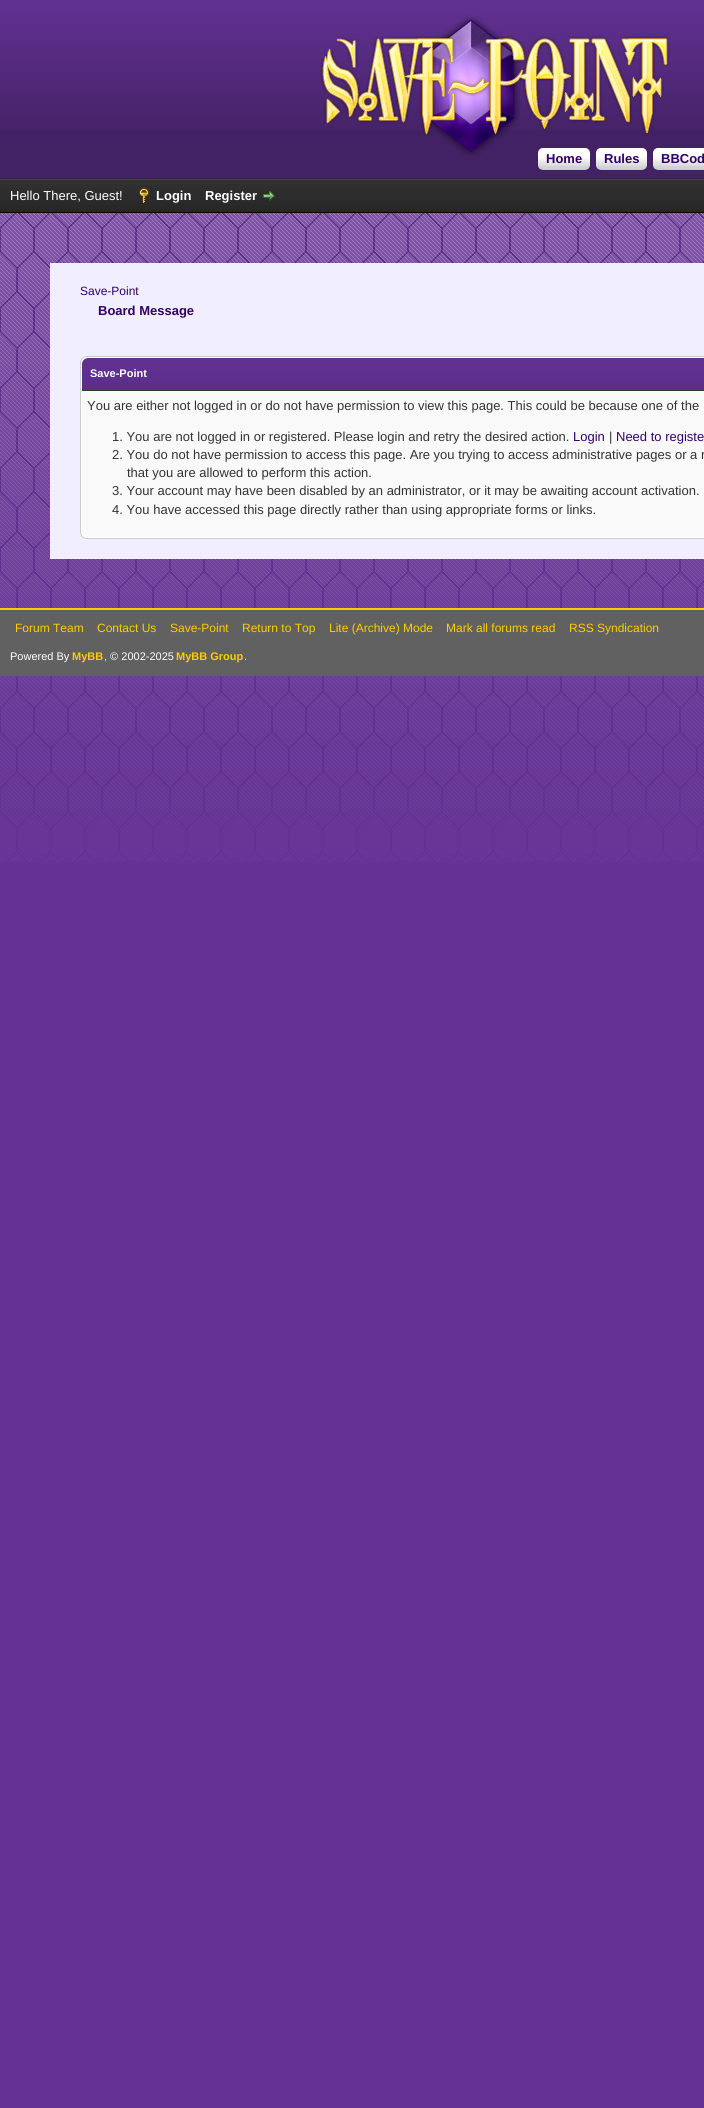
#include <cairo.h>
#include <math.h>
#include <stddef.h>

static cairo_t *ctx;

static void use_color(int r, int g, int b) {
    cairo_set_source_rgb(ctx, r / 255.0, g / 255.0, b / 255.0);
}

static void round_rect(double x, double y, double w, double h, double r) {
    cairo_new_sub_path(ctx);
    cairo_arc(ctx, x + w - r, y + h - r, r, 0, M_PI / 2);
    cairo_arc(ctx, x + r, y + h - r, r, M_PI / 2, M_PI);
    cairo_arc(ctx, x + r, y + r, r, M_PI, 1.5 * M_PI);
    cairo_arc(ctx, x + w - r, y + r, r, 1.5 * M_PI, 2 * M_PI);
    cairo_close_path(ctx);
}

static void picture(const char *path, double x, double y, double w, double h) {
    cairo_surface_t *image = cairo_image_surface_create_from_png(path);
    cairo_save(ctx);
    cairo_set_source_surface(ctx, image, x, y);
    cairo_rectangle(ctx, x, y, w, h);
    cairo_fill(ctx);
    cairo_restore(ctx);
    cairo_surface_destroy(image);
}

int main(void) {
    cairo_surface_t *surface = cairo_image_surface_create(CAIRO_FORMAT_RGB24, 704, 2108);
    ctx = cairo_create(surface);
    cairo_font_options_t *options = cairo_font_options_create();
    cairo_font_options_set_hint_metrics(options, CAIRO_HINT_METRICS_OFF);
    cairo_font_options_set_hint_style(options, CAIRO_HINT_STYLE_NONE);
    cairo_set_font_options(ctx, options);
    cairo_set_miter_limit(ctx, 4);
    use_color(100, 50, 149);
    cairo_paint(ctx);
    picture("img1.png", 0, 213, 704, 649);
    use_color(66, 33, 100);
    cairo_rectangle(ctx, 0, 130, 704, 48);
    cairo_fill(ctx);
    picture("img2.png", 0, 0, 704, 130);
    use_color(44, 38, 60);
    cairo_rectangle(ctx, 0, 178, 704, 1);
    cairo_fill(ctx);
    picture("img3.png", 320, 15, 350, 141);
    picture("img4.png", 538, 148, 52, 22);
    cairo_select_font_face(ctx, "Liberation Sans", CAIRO_FONT_SLANT_NORMAL, CAIRO_FONT_WEIGHT_BOLD);
    cairo_set_font_size(ctx, 13);
    use_color(51, 0, 102);
    cairo_move_to(ctx, 546, 163);
    cairo_show_text(ctx, "Home");
    picture("img5.png", 596, 148, 51, 22);
    cairo_move_to(ctx, 604, 163);
    cairo_show_text(ctx, "Rules");
    picture("img6.png", 653, 148, 51, 22);
    cairo_move_to(ctx, 661, 163);
    cairo_show_text(ctx, "BBCod");
    picture("img7.png", 0, 180, 704, 32);
    use_color(68, 68, 68);
    cairo_rectangle(ctx, 0, 179, 704, 1);
    cairo_fill(ctx);
    use_color(0, 0, 0);
    cairo_rectangle(ctx, 0, 212, 704, 1);
    cairo_fill(ctx);
    cairo_select_font_face(ctx, "Liberation Sans", CAIRO_FONT_SLANT_NORMAL, CAIRO_FONT_WEIGHT_NORMAL);
    use_color(255, 255, 255);
    cairo_move_to(ctx, 10, 200);
    cairo_show_text(ctx, "Hello There, Guest!");
    picture("img8.png", 139, 188, 10, 15);
    cairo_select_font_face(ctx, "Liberation Sans", CAIRO_FONT_SLANT_NORMAL, CAIRO_FONT_WEIGHT_BOLD);
    cairo_move_to(ctx, 156, 200);
    cairo_show_text(ctx, "Login");
    cairo_move_to(ctx, 205, 200);
    cairo_show_text(ctx, "Register");
    picture("img9.png", 263, 191, 12, 10);
    use_color(240, 238, 255);
    cairo_rectangle(ctx, 50, 263, 654, 296);
    cairo_fill(ctx);
    cairo_select_font_face(ctx, "Liberation Sans", CAIRO_FONT_SLANT_NORMAL, CAIRO_FONT_WEIGHT_NORMAL);
    cairo_set_font_size(ctx, 12);
    use_color(51, 0, 102);
    cairo_move_to(ctx, 80, 295);
    cairo_show_text(ctx, "Save-Point");
    cairo_select_font_face(ctx, "Liberation Sans", CAIRO_FONT_SLANT_NORMAL, CAIRO_FONT_WEIGHT_BOLD);
    cairo_set_font_size(ctx, 13);
    cairo_move_to(ctx, 98, 315);
    cairo_show_text(ctx, "Board Message");
    use_color(255, 255, 255);
    round_rect(80.5, 356.5, 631, 182, 6.5);
    cairo_fill_preserve(ctx);
    use_color(204, 204, 204);
    cairo_set_line_width(ctx, 1);
    cairo_stroke(ctx);
    picture("img10.png", 82, 358, 622, 32);
    use_color(38, 60, 48);
    cairo_rectangle(ctx, 82, 390, 622, 1);
    cairo_fill(ctx);
    cairo_set_font_size(ctx, 11);
    use_color(255, 255, 255);
    cairo_move_to(ctx, 90, 377);
    cairo_show_text(ctx, "Save-Point");
    use_color(249, 249, 249);
    cairo_new_path(ctx);
    cairo_move_to(ctx, 82, 391);
    cairo_line_to(ctx, 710, 391);
    cairo_line_to(ctx, 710, 531);
    cairo_curve_to(ctx, 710, 534.5, 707.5, 537, 704, 537);
    cairo_line_to(ctx, 88, 537);
    cairo_curve_to(ctx, 84.5, 537, 82, 534.5, 82, 531);
    cairo_close_path(ctx);
    cairo_fill(ctx);
    use_color(255, 255, 255);
    cairo_rectangle(ctx, 82, 391, 622, 1);
    cairo_fill(ctx);
    cairo_select_font_face(ctx, "Liberation Sans", CAIRO_FONT_SLANT_NORMAL, CAIRO_FONT_WEIGHT_NORMAL);
    cairo_set_font_size(ctx, 13);
    use_color(51, 51, 51);
    cairo_move_to(ctx, 87, 410);
    cairo_show_text(ctx, "You are either not logged in or do not have permission to view this page. This could be because one of the");
    cairo_move_to(ctx, 112, 441);
    cairo_show_text(ctx, "1. You are not logged in or registered. Please login and retry the desired action.");
    use_color(51, 0, 102);
    cairo_move_to(ctx, 573, 441);
    cairo_show_text(ctx, "Login");
    use_color(51, 51, 51);
    cairo_move_to(ctx, 609, 441);
    cairo_show_text(ctx, "|");
    use_color(51, 0, 102);
    cairo_move_to(ctx, 616, 441);
    cairo_show_text(ctx, "Need to registe");
    use_color(51, 51, 51);
    cairo_move_to(ctx, 112, 459);
    cairo_show_text(ctx, "2. You do not have permission to access this page. Are you trying to access administrative pages or a r");
    cairo_move_to(ctx, 127, 477);
    cairo_show_text(ctx, "that you are allowed to perform this action.");
    cairo_move_to(ctx, 112, 495);
    cairo_show_text(ctx, "3. Your account may have been disabled by an administrator, or it may be awaiting account activation.");
    cairo_move_to(ctx, 112, 514);
    cairo_show_text(ctx, "4. You have accessed this page directly rather than using appropriate forms or links.");
    use_color(97, 97, 97);
    cairo_rectangle(ctx, 0, 610, 704, 66);
    cairo_fill(ctx);
    use_color(255, 204, 0);
    cairo_rectangle(ctx, 0, 608, 704, 2);
    cairo_fill(ctx);
    cairo_set_font_size(ctx, 12);
    cairo_move_to(ctx, 15, 632);
    cairo_show_text(ctx, "Forum Team");
    cairo_move_to(ctx, 97, 632);
    cairo_show_text(ctx, "Contact Us");
    cairo_move_to(ctx, 170, 632);
    cairo_show_text(ctx, "Save-Point");
    cairo_move_to(ctx, 242, 632);
    cairo_show_text(ctx, "Return to Top");
    cairo_move_to(ctx, 329, 632);
    cairo_show_text(ctx, "Lite (Archive) Mode");
    cairo_move_to(ctx, 446, 632);
    cairo_show_text(ctx, "Mark all forums read");
    cairo_move_to(ctx, 569, 632);
    cairo_show_text(ctx, "RSS Syndication");
    cairo_set_font_size(ctx, 11);
    use_color(255, 255, 255);
    cairo_move_to(ctx, 10, 660);
    cairo_show_text(ctx, "Powered By");
    cairo_select_font_face(ctx, "Liberation Sans", CAIRO_FONT_SLANT_NORMAL, CAIRO_FONT_WEIGHT_BOLD);
    use_color(255, 204, 0);
    cairo_move_to(ctx, 72, 660);
    cairo_show_text(ctx, "MyBB");
    cairo_select_font_face(ctx, "Liberation Sans", CAIRO_FONT_SLANT_NORMAL, CAIRO_FONT_WEIGHT_NORMAL);
    use_color(255, 255, 255);
    cairo_move_to(ctx, 104, 660);
    cairo_show_text(ctx, ", © 2002-2025");
    cairo_select_font_face(ctx, "Liberation Sans", CAIRO_FONT_SLANT_NORMAL, CAIRO_FONT_WEIGHT_BOLD);
    use_color(255, 204, 0);
    cairo_move_to(ctx, 176, 660);
    cairo_show_text(ctx, "MyBB Group");
    cairo_select_font_face(ctx, "Liberation Sans", CAIRO_FONT_SLANT_NORMAL, CAIRO_FONT_WEIGHT_NORMAL);
    use_color(255, 255, 255);
    cairo_move_to(ctx, 244, 660);
    cairo_show_text(ctx, ".");
    cairo_surface_write_to_png(surface, "result.png");
    cairo_font_options_destroy(options);
    cairo_destroy(ctx);
    cairo_surface_destroy(surface);
    return 0;
}
